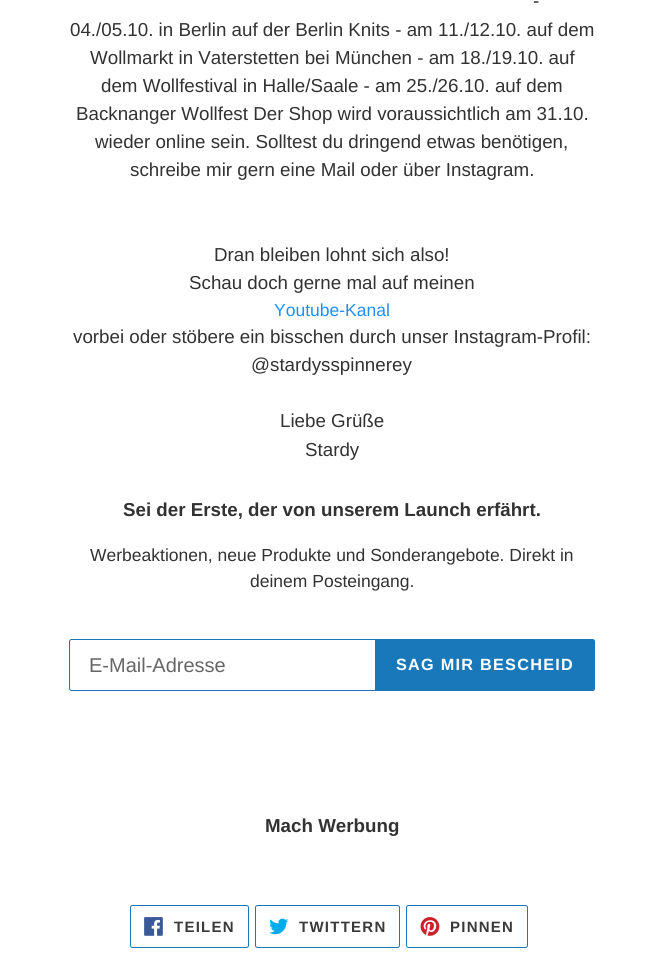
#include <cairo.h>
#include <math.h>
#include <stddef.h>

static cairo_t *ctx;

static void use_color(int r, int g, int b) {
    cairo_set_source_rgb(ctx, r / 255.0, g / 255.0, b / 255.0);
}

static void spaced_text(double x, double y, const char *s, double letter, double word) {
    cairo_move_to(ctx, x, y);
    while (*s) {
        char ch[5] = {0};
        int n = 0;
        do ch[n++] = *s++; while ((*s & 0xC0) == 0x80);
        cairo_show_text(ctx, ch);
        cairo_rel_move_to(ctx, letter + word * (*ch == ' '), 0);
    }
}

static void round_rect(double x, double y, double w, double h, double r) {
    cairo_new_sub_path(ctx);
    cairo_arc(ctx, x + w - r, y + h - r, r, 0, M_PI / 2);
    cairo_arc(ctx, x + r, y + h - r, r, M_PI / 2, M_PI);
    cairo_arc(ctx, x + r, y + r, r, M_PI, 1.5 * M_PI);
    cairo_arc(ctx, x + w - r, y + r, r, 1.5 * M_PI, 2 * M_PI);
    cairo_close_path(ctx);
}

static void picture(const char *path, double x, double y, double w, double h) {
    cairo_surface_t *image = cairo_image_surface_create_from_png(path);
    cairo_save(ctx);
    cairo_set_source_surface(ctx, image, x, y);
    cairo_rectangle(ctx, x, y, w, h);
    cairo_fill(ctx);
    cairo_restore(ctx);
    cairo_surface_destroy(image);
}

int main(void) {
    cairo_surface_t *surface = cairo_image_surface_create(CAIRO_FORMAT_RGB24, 663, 960);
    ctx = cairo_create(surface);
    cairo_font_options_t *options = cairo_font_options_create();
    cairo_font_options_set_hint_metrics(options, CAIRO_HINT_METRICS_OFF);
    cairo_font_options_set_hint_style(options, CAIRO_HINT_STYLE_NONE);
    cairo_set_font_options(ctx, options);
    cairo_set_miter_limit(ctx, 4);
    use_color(255, 255, 255);
    cairo_paint(ctx);
    cairo_select_font_face(ctx, "Liberation Sans", CAIRO_FONT_SLANT_NORMAL, CAIRO_FONT_WEIGHT_NORMAL);
    cairo_set_font_size(ctx, 18.75);
    use_color(51, 50, 50);
    cairo_move_to(ctx, 533, 7);
    cairo_show_text(ctx, "-");
    cairo_move_to(ctx, 70, 36);
    cairo_show_text(ctx, "04./05.10. in Berlin auf der Berlin Knits - am 11./12.10. auf dem");
    cairo_move_to(ctx, 90, 64);
    cairo_show_text(ctx, "Wollmarkt in Vaterstetten bei München - am 18./19.10. auf");
    cairo_move_to(ctx, 101, 92);
    cairo_show_text(ctx, "dem Wollfestival in Halle/Saale - am 25./26.10. auf dem");
    cairo_move_to(ctx, 76, 120);
    cairo_show_text(ctx, "Backnanger Wollfest Der Shop wird voraussichtlich am 31.10.");
    cairo_move_to(ctx, 95, 148);
    cairo_show_text(ctx, "wieder online sein. Solltest du dringend etwas benötigen,");
    cairo_move_to(ctx, 130, 176);
    cairo_show_text(ctx, "schreibe mir gern eine Mail oder über Instagram.");
    cairo_move_to(ctx, 214, 261);
    cairo_show_text(ctx, "Dran bleiben lohnt sich also!");
    cairo_move_to(ctx, 189, 289);
    cairo_show_text(ctx, "Schau doch gerne mal auf meinen");
    cairo_set_font_size(ctx, 17.5);
    use_color(30, 144, 255);
    cairo_move_to(ctx, 274, 316);
    cairo_show_text(ctx, "Youtube-Kanal");
    cairo_set_font_size(ctx, 18.75);
    use_color(51, 50, 50);
    cairo_move_to(ctx, 73, 343);
    cairo_show_text(ctx, "vorbei oder stöbere ein bisschen durch unser Instagram-Profil:");
    cairo_move_to(ctx, 251, 371);
    cairo_show_text(ctx, "@stardysspinnerey");
    cairo_move_to(ctx, 280, 427);
    cairo_show_text(ctx, "Liebe Grüße");
    cairo_move_to(ctx, 305, 456);
    cairo_show_text(ctx, "Stardy");
    cairo_select_font_face(ctx, "Liberation Sans", CAIRO_FONT_SLANT_NORMAL, CAIRO_FONT_WEIGHT_BOLD);
    cairo_move_to(ctx, 123, 516);
    cairo_show_text(ctx, "Sei der Erste, der von unserem Launch erfährt.");
    cairo_select_font_face(ctx, "Liberation Sans", CAIRO_FONT_SLANT_NORMAL, CAIRO_FONT_WEIGHT_NORMAL);
    cairo_set_font_size(ctx, 17.5);
    cairo_move_to(ctx, 90, 561);
    cairo_show_text(ctx, "Werbeaktionen, neue Produkte und Sonderangebote. Direkt in");
    cairo_move_to(ctx, 250, 587);
    cairo_show_text(ctx, "deinem Posteingang.");
    cairo_new_path(ctx);
    cairo_move_to(ctx, 71.5, 639.5);
    cairo_line_to(ctx, 375.5, 639.5);
    cairo_line_to(ctx, 375.5, 690.5);
    cairo_line_to(ctx, 71.5, 690.5);
    cairo_curve_to(ctx, 70.5, 690.5, 69.5, 689.5, 69.5, 688.5);
    cairo_line_to(ctx, 69.5, 641.5);
    cairo_curve_to(ctx, 69.5, 640.5, 70.5, 639.5, 71.5, 639.5);
    cairo_close_path(ctx);
    use_color(24, 120, 185);
    cairo_set_line_width(ctx, 1);
    cairo_stroke(ctx);
    cairo_set_font_size(ctx, 20);
    use_color(102, 102, 102);
    cairo_move_to(ctx, 89, 672);
    cairo_show_text(ctx, "E-Mail-Adresse");
    use_color(24, 120, 185);
    cairo_new_path(ctx);
    cairo_move_to(ctx, 376, 639);
    cairo_line_to(ctx, 592.5, 639);
    cairo_curve_to(ctx, 594, 639, 595, 640, 595, 641.5);
    cairo_line_to(ctx, 595, 688.5);
    cairo_curve_to(ctx, 595, 690, 594, 691, 592.5, 691);
    cairo_line_to(ctx, 376, 691);
    cairo_close_path(ctx);
    cairo_fill(ctx);
    cairo_select_font_face(ctx, "Liberation Sans", CAIRO_FONT_SLANT_NORMAL, CAIRO_FONT_WEIGHT_BOLD);
    cairo_set_font_size(ctx, 16.25);
    use_color(255, 255, 255);
    spaced_text(396, 670, "SAG MIR BESCHEID", 1.25, 0);
    cairo_set_font_size(ctx, 18.75);
    use_color(51, 50, 50);
    cairo_move_to(ctx, 265, 832);
    cairo_show_text(ctx, "Mach Werbung");
    round_rect(130.5, 905.5, 118, 42, 2);
    use_color(24, 120, 185);
    cairo_stroke(ctx);
    picture("img1.png", 144, 917, 19, 19);
    cairo_set_font_size(ctx, 15);
    use_color(58, 58, 58);
    spaced_text(174, 932, "TEILEN", 1.25, 0);
    round_rect(255.5, 905.5, 144, 42, 2);
    use_color(24, 120, 185);
    cairo_stroke(ctx);
    picture("img2.png", 269, 918, 20, 17);
    use_color(58, 58, 58);
    spaced_text(299, 932, "TWITTERN", 1.25, 0);
    round_rect(406.5, 905.5, 121, 42, 2);
    use_color(24, 120, 185);
    cairo_stroke(ctx);
    picture("img3.png", 420, 917, 20, 19);
    use_color(58, 58, 58);
    spaced_text(450, 932, "PINNEN", 1.25, 0);
    cairo_surface_write_to_png(surface, "result.png");
    cairo_font_options_destroy(options);
    cairo_destroy(ctx);
    cairo_surface_destroy(surface);
    return 0;
}
